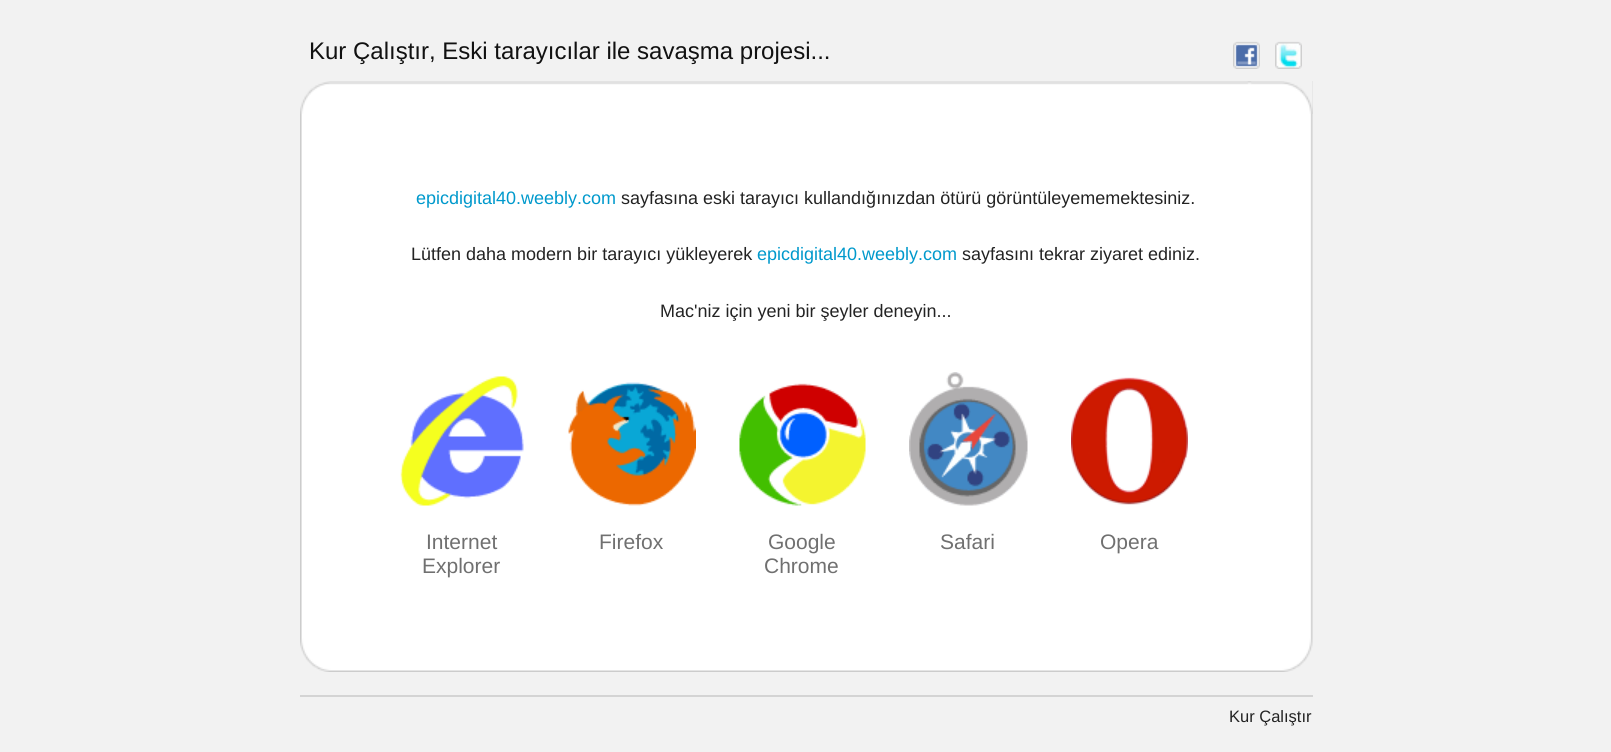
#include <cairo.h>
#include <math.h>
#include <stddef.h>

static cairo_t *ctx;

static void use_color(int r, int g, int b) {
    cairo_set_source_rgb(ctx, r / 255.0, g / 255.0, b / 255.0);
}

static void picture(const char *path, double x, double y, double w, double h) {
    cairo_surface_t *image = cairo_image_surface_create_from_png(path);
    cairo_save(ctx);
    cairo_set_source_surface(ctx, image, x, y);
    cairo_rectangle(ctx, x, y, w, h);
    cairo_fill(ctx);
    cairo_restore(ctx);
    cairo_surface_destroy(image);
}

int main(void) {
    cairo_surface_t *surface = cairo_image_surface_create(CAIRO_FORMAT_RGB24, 1611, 752);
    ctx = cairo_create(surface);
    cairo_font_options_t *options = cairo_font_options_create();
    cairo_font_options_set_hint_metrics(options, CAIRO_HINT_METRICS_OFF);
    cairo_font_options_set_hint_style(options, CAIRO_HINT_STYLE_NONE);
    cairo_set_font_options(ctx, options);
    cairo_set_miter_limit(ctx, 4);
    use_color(242, 242, 242);
    cairo_paint(ctx);
    cairo_select_font_face(ctx, "Liberation Sans", CAIRO_FONT_SLANT_NORMAL, CAIRO_FONT_WEIGHT_NORMAL);
    cairo_set_font_size(ctx, 24);
    use_color(17, 17, 17);
    cairo_move_to(ctx, 309, 59);
    cairo_show_text(ctx, "Kur Çalıştır, Eski tarayıcılar ile savaşma projesi...");
    picture("img1.png", 1233, 41, 27, 28);
    picture("img2.png", 1275, 41, 27, 28);
    picture("img3.png", 300, 81, 1013, 591);
    picture("img4.png", 300, 81, 1013, 33);
    cairo_set_font_size(ctx, 18);
    use_color(0, 153, 204);
    cairo_move_to(ctx, 416, 204);
    cairo_show_text(ctx, "epicdigital40.weebly.com");
    use_color(35, 35, 35);
    cairo_move_to(ctx, 621, 204);
    cairo_show_text(ctx, "sayfasına eski tarayıcı kullandığınızdan ötürü görüntüleyememektesiniz.");
    cairo_move_to(ctx, 411, 260);
    cairo_show_text(ctx, "Lütfen daha modern bir tarayıcı yükleyerek");
    use_color(0, 153, 204);
    cairo_move_to(ctx, 757, 260);
    cairo_show_text(ctx, "epicdigital40.weebly.com");
    use_color(35, 35, 35);
    cairo_move_to(ctx, 962, 260);
    cairo_show_text(ctx, "sayfasını tekrar ziyaret ediniz.");
    cairo_move_to(ctx, 660, 317);
    cairo_show_text(ctx, "Mac'niz için yeni bir şeyler deneyin...");
    picture("img5.png", 400, 376, 124, 130);
    cairo_set_font_size(ctx, 21);
    use_color(112, 112, 112);
    cairo_move_to(ctx, 426, 549);
    cairo_show_text(ctx, "Internet");
    cairo_move_to(ctx, 422, 573);
    cairo_show_text(ctx, "Explorer");
    picture("img6.png", 568, 382, 128, 124);
    cairo_move_to(ctx, 599, 549);
    cairo_show_text(ctx, "Firefox");
    picture("img7.png", 739, 383, 127, 123);
    cairo_move_to(ctx, 768, 549);
    cairo_show_text(ctx, "Google");
    cairo_move_to(ctx, 764, 573);
    cairo_show_text(ctx, "Chrome");
    picture("img8.png", 909, 372, 119, 134);
    cairo_move_to(ctx, 940, 549);
    cairo_show_text(ctx, "Safari");
    picture("img9.png", 1071, 377, 117, 128);
    cairo_move_to(ctx, 1100, 549);
    cairo_show_text(ctx, "Opera");
    use_color(212, 212, 212);
    cairo_rectangle(ctx, 300, 695, 1013, 2);
    cairo_fill(ctx);
    cairo_set_font_size(ctx, 16.5);
    use_color(35, 35, 35);
    cairo_move_to(ctx, 1229, 722);
    cairo_show_text(ctx, "Kur Çalıştır");
    cairo_surface_write_to_png(surface, "result.png");
    cairo_font_options_destroy(options);
    cairo_destroy(ctx);
    cairo_surface_destroy(surface);
    return 0;
}
